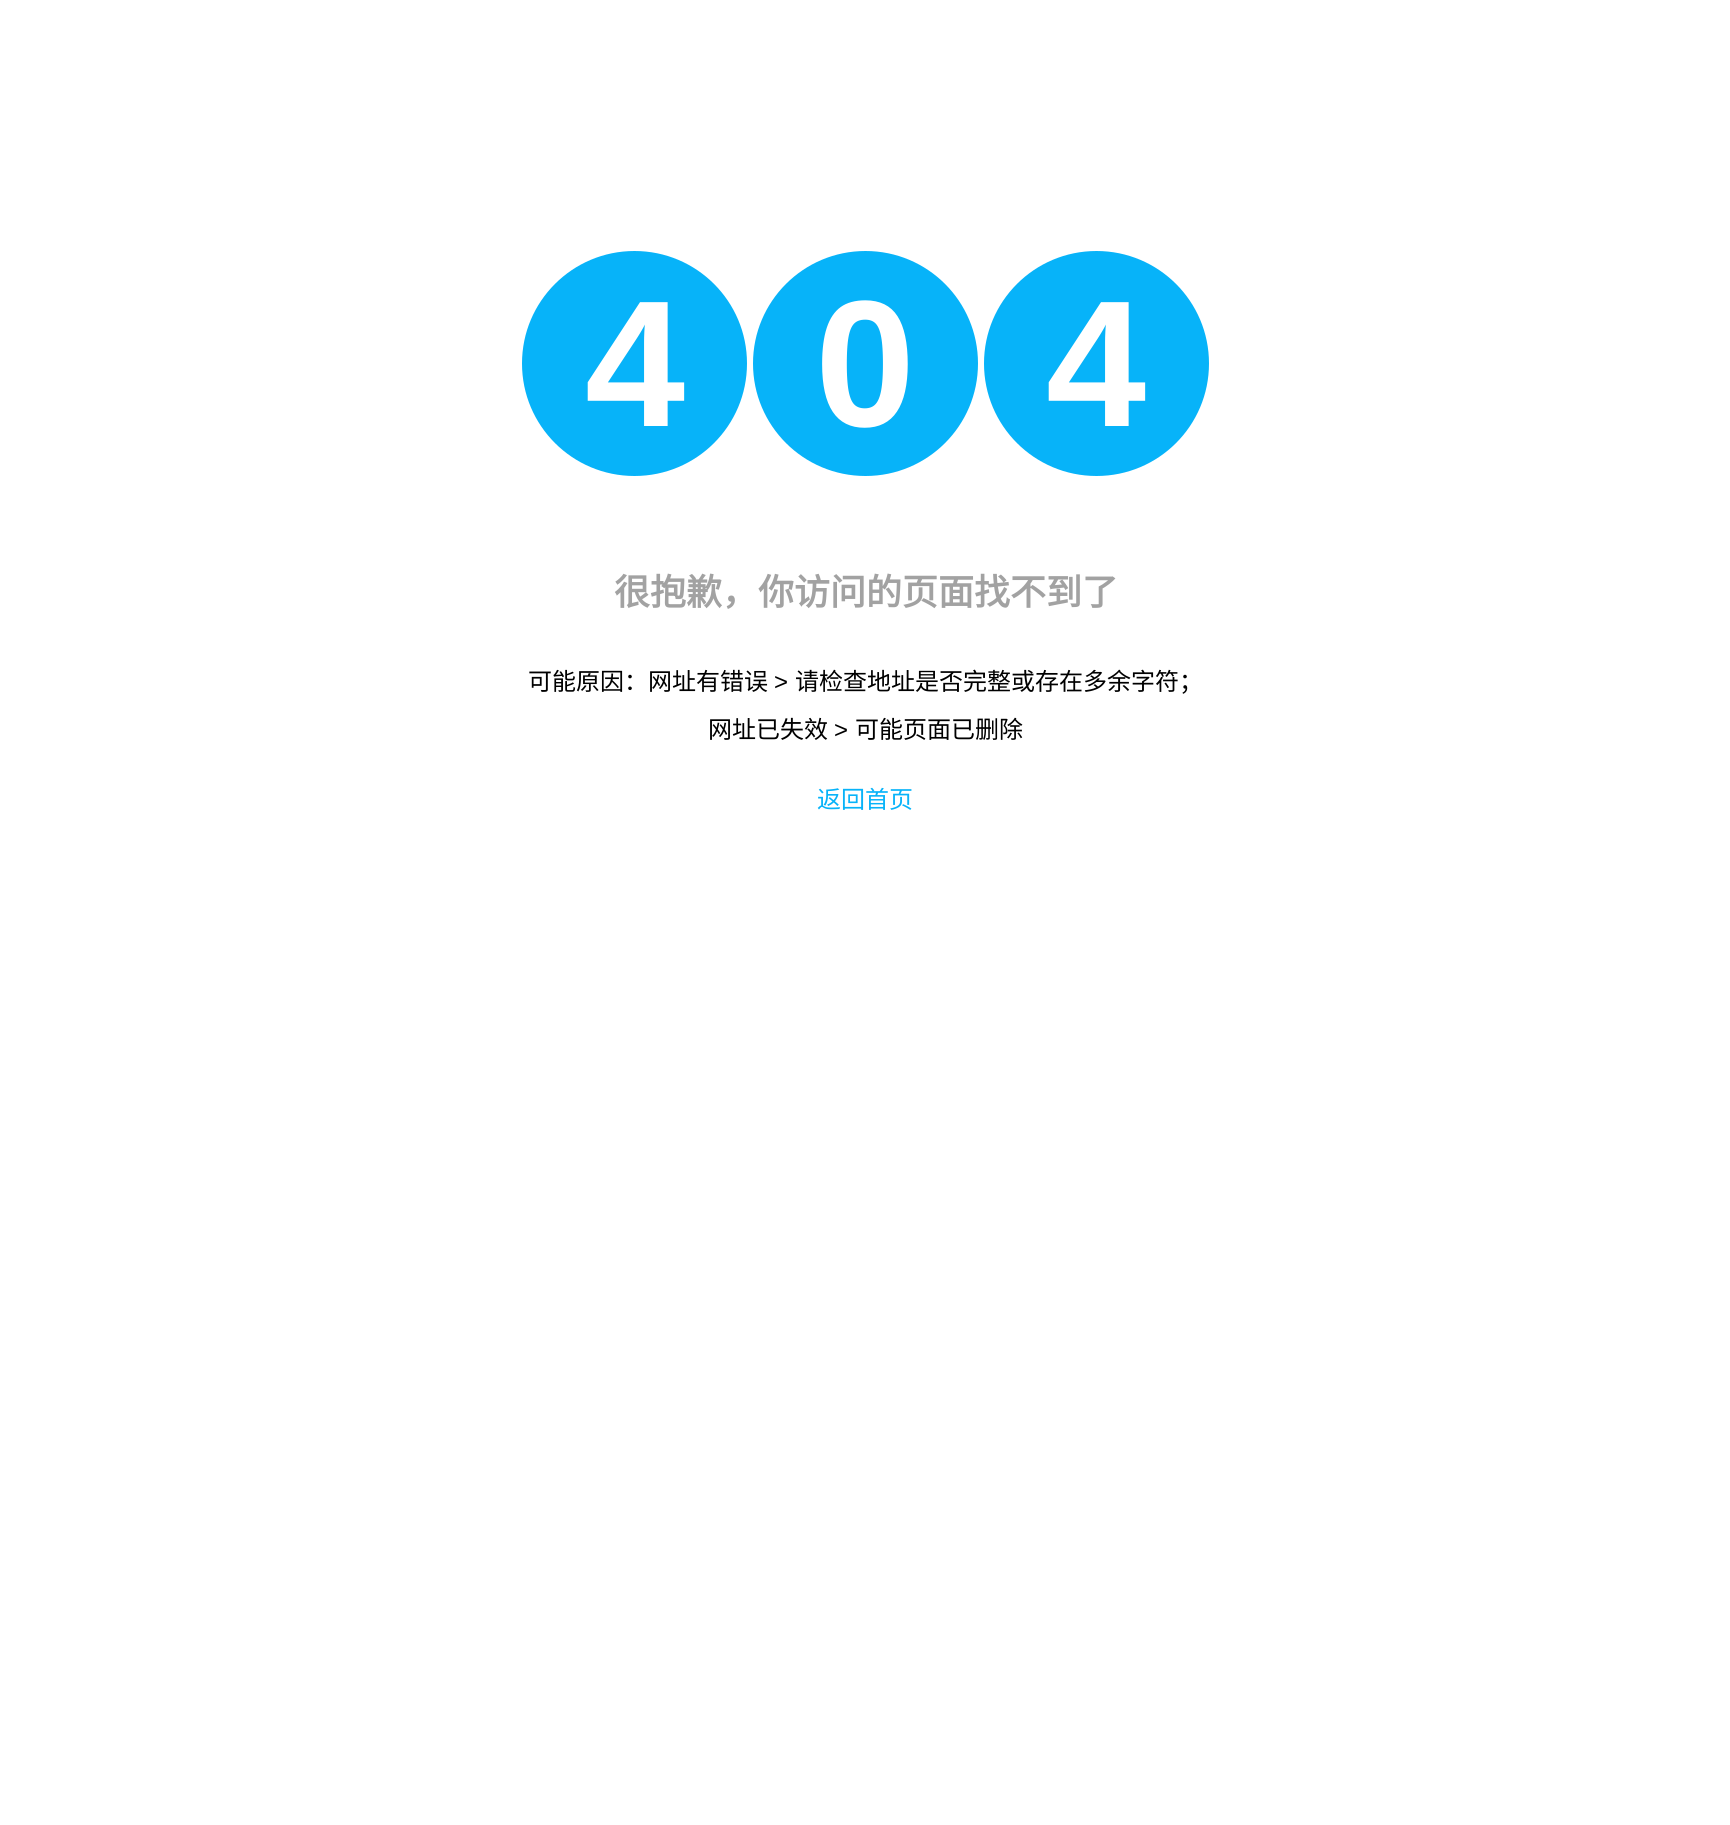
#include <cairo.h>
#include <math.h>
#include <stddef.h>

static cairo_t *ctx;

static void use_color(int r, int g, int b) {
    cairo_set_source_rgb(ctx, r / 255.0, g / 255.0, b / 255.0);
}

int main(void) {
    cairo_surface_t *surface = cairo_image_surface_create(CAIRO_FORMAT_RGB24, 1730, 1825);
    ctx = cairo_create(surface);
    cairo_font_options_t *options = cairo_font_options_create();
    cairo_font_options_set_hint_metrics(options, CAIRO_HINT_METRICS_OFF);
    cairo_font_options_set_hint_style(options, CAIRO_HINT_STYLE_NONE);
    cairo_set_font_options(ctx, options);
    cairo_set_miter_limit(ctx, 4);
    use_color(255, 255, 255);
    cairo_paint(ctx);
    use_color(7, 179, 249);
    cairo_arc(ctx, 634.5, 363.5, 112.5, 0, 2 * M_PI);
    cairo_fill(ctx);
    cairo_select_font_face(ctx, "Liberation Sans", CAIRO_FONT_SLANT_NORMAL, CAIRO_FONT_WEIGHT_BOLD);
    cairo_set_font_size(ctx, 180);
    use_color(255, 255, 255);
    cairo_move_to(ctx, 585, 426);
    cairo_show_text(ctx, "4");
    use_color(7, 179, 249);
    cairo_new_path(ctx);
    cairo_arc(ctx, 865.5, 363.5, 112.5, 0, 2 * M_PI);
    cairo_fill(ctx);
    use_color(255, 255, 255);
    cairo_move_to(ctx, 815, 426);
    cairo_show_text(ctx, "0");
    use_color(7, 179, 249);
    cairo_new_path(ctx);
    cairo_arc(ctx, 1096.5, 363.5, 112.5, 0, 2 * M_PI);
    cairo_fill(ctx);
    use_color(255, 255, 255);
    cairo_move_to(ctx, 1046, 426);
    cairo_show_text(ctx, "4");
    cairo_select_font_face(ctx, "Noto Sans CJK SC", CAIRO_FONT_SLANT_NORMAL, CAIRO_FONT_WEIGHT_BOLD);
    cairo_set_font_size(ctx, 36);
    use_color(162, 162, 162);
    cairo_move_to(ctx, 614, 605);
    cairo_show_text(ctx, "很抱歉，你访问的页面找不到了");
    cairo_select_font_face(ctx, "Noto Sans CJK SC", CAIRO_FONT_SLANT_NORMAL, CAIRO_FONT_WEIGHT_NORMAL);
    cairo_set_font_size(ctx, 24);
    use_color(0, 0, 0);
    cairo_move_to(ctx, 528, 690);
    cairo_show_text(ctx, "可能原因：网址有错误");
    cairo_select_font_face(ctx, "Liberation Sans", CAIRO_FONT_SLANT_NORMAL, CAIRO_FONT_WEIGHT_NORMAL);
    cairo_move_to(ctx, 774, 690);
    cairo_show_text(ctx, ">");
    cairo_select_font_face(ctx, "Noto Sans CJK SC", CAIRO_FONT_SLANT_NORMAL, CAIRO_FONT_WEIGHT_NORMAL);
    cairo_move_to(ctx, 795, 690);
    cairo_show_text(ctx, "请检查地址是否完整或存在多余字符；");
    cairo_move_to(ctx, 708, 738);
    cairo_show_text(ctx, "网址已失效");
    cairo_select_font_face(ctx, "Liberation Sans", CAIRO_FONT_SLANT_NORMAL, CAIRO_FONT_WEIGHT_NORMAL);
    cairo_move_to(ctx, 834, 738);
    cairo_show_text(ctx, ">");
    cairo_select_font_face(ctx, "Noto Sans CJK SC", CAIRO_FONT_SLANT_NORMAL, CAIRO_FONT_WEIGHT_NORMAL);
    cairo_move_to(ctx, 855, 738);
    cairo_show_text(ctx, "可能页面已删除");
    use_color(7, 179, 249);
    cairo_move_to(ctx, 817, 808);
    cairo_show_text(ctx, "返回首页");
    cairo_surface_write_to_png(surface, "result.png");
    cairo_font_options_destroy(options);
    cairo_destroy(ctx);
    cairo_surface_destroy(surface);
    return 0;
}
